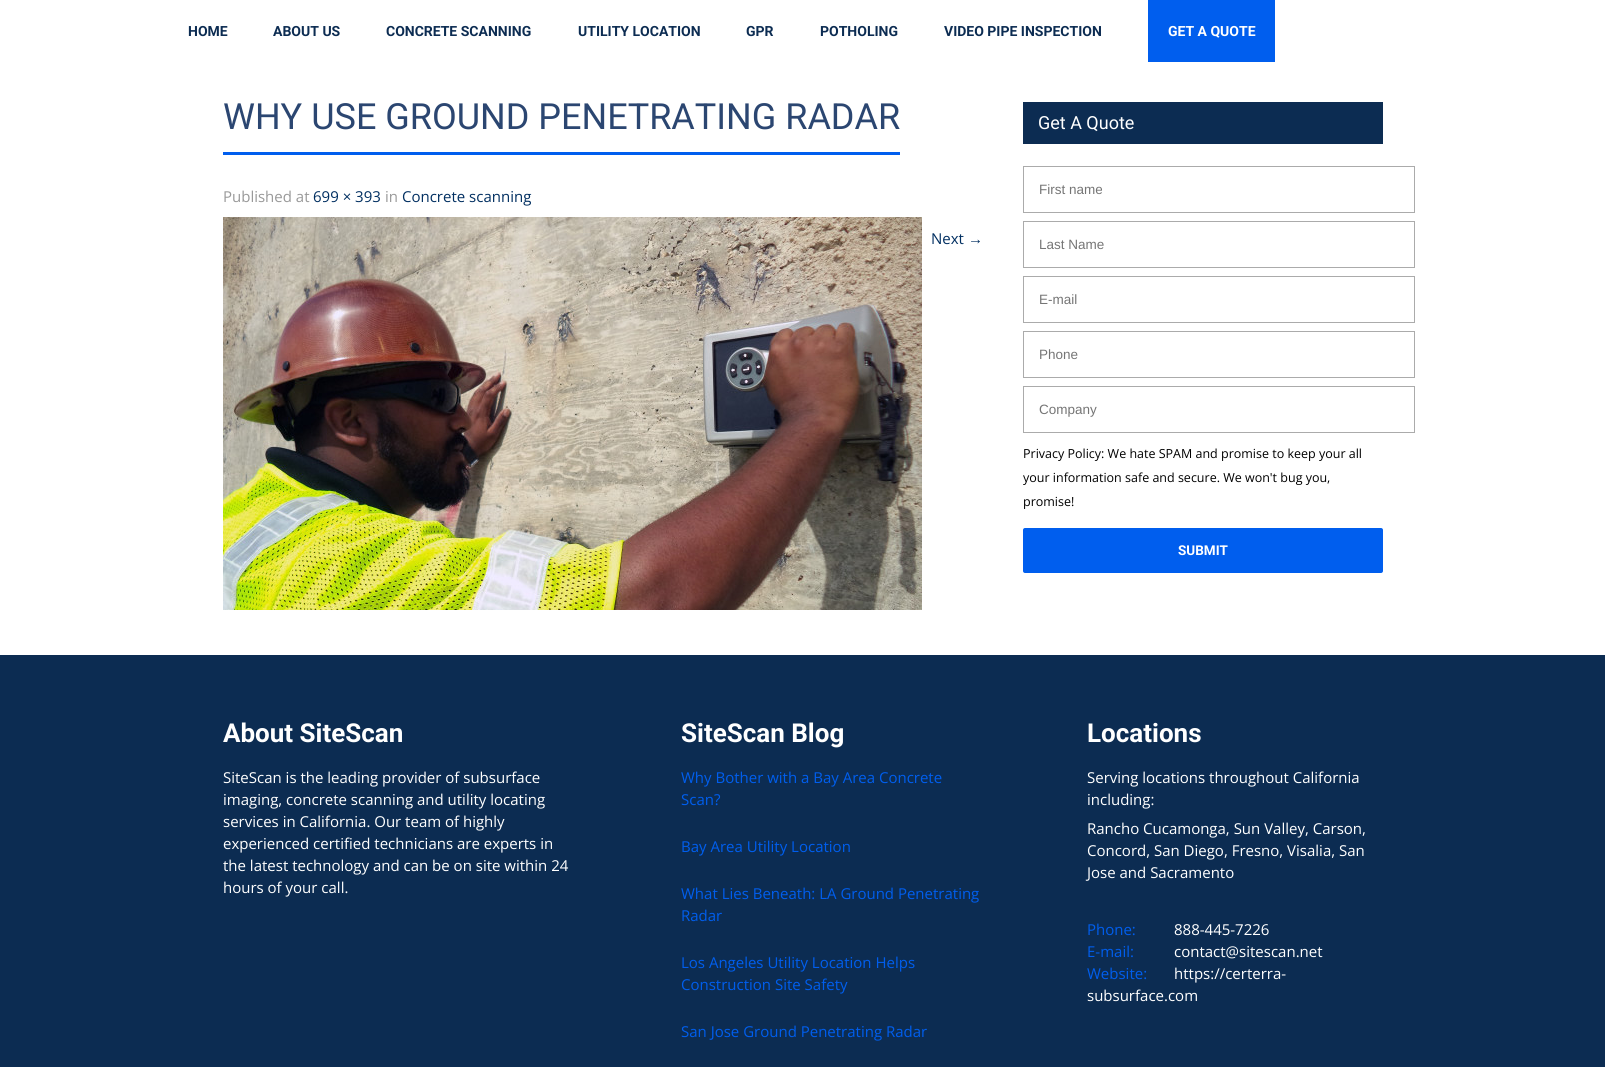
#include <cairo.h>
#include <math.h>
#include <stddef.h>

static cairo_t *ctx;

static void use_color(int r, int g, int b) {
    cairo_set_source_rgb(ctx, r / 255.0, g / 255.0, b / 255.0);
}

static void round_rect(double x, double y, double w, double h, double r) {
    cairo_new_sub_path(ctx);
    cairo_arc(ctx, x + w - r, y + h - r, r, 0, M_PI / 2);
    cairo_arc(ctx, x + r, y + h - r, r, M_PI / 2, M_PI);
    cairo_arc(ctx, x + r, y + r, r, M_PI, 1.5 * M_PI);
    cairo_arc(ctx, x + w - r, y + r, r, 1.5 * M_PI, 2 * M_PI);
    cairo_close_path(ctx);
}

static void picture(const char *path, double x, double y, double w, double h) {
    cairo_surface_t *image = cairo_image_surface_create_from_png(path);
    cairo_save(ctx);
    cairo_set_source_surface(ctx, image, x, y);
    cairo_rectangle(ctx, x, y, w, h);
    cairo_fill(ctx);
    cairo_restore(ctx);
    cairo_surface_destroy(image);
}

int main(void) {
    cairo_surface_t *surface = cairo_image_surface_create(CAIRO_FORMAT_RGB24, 1605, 1067);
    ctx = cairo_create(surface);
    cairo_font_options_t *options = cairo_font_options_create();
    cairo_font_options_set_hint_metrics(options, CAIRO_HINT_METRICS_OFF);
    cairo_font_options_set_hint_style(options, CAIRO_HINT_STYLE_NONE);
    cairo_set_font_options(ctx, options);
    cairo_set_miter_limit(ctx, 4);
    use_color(255, 255, 255);
    cairo_paint(ctx);
    cairo_select_font_face(ctx, "Roboto", CAIRO_FONT_SLANT_NORMAL, CAIRO_FONT_WEIGHT_BOLD);
    cairo_set_font_size(ctx, 14);
    use_color(12, 44, 82);
    cairo_move_to(ctx, 188, 36);
    cairo_show_text(ctx, "HOME");
    cairo_move_to(ctx, 273, 36);
    cairo_show_text(ctx, "ABOUT US");
    cairo_move_to(ctx, 386, 36);
    cairo_show_text(ctx, "CONCRETE SCANNING");
    cairo_move_to(ctx, 578, 36);
    cairo_show_text(ctx, "UTILITY LOCATION");
    cairo_move_to(ctx, 746, 36);
    cairo_show_text(ctx, "GPR");
    cairo_move_to(ctx, 820, 36);
    cairo_show_text(ctx, "POTHOLING");
    cairo_move_to(ctx, 944, 36);
    cairo_show_text(ctx, "VIDEO PIPE INSPECTION");
    use_color(0, 94, 238);
    cairo_rectangle(ctx, 1148, 0, 127, 62);
    cairo_fill(ctx);
    use_color(255, 255, 255);
    cairo_move_to(ctx, 1168, 36);
    cairo_show_text(ctx, "GET A QUOTE");
    use_color(0, 94, 238);
    cairo_rectangle(ctx, 223, 152, 677, 3);
    cairo_fill(ctx);
    cairo_select_font_face(ctx, "Roboto", CAIRO_FONT_SLANT_NORMAL, CAIRO_FONT_WEIGHT_NORMAL);
    cairo_set_font_size(ctx, 36);
    use_color(43, 70, 113);
    cairo_move_to(ctx, 223, 129);
    cairo_show_text(ctx, "WHY USE GROUND PENETRATING RADAR");
    cairo_select_font_face(ctx, "Open Sans", CAIRO_FONT_SLANT_NORMAL, CAIRO_FONT_WEIGHT_NORMAL);
    cairo_set_font_size(ctx, 15);
    use_color(153, 153, 153);
    cairo_move_to(ctx, 223, 202);
    cairo_show_text(ctx, "Published at");
    use_color(1, 47, 97);
    cairo_move_to(ctx, 313, 202);
    cairo_show_text(ctx, "699 × 393");
    use_color(153, 153, 153);
    cairo_move_to(ctx, 385, 202);
    cairo_show_text(ctx, "in");
    use_color(1, 47, 97);
    cairo_move_to(ctx, 402, 202);
    cairo_show_text(ctx, "Concrete scanning");
    cairo_move_to(ctx, 931, 244);
    cairo_show_text(ctx, "Next");
    cairo_select_font_face(ctx, "Liberation Sans", CAIRO_FONT_SLANT_NORMAL, CAIRO_FONT_WEIGHT_NORMAL);
    cairo_move_to(ctx, 968, 244);
    cairo_show_text(ctx, "→");
    picture("img1.png", 223, 217, 699, 393);
    use_color(12, 44, 82);
    cairo_rectangle(ctx, 1023, 102, 360, 42);
    cairo_fill(ctx);
    cairo_select_font_face(ctx, "Roboto", CAIRO_FONT_SLANT_NORMAL, CAIRO_FONT_WEIGHT_NORMAL);
    cairo_set_font_size(ctx, 18);
    use_color(255, 255, 255);
    cairo_move_to(ctx, 1038, 129);
    cairo_show_text(ctx, "Get A Quote");
    cairo_rectangle(ctx, 1023.5, 166.5, 391, 46);
    use_color(171, 171, 171);
    cairo_set_line_width(ctx, 1);
    cairo_stroke(ctx);
    cairo_select_font_face(ctx, "Liberation Sans", CAIRO_FONT_SLANT_NORMAL, CAIRO_FONT_WEIGHT_NORMAL);
    cairo_set_font_size(ctx, 13.5);
    use_color(117, 117, 117);
    cairo_move_to(ctx, 1039, 194);
    cairo_show_text(ctx, "First name");
    cairo_rectangle(ctx, 1023.5, 221.5, 391, 46);
    use_color(171, 171, 171);
    cairo_stroke(ctx);
    use_color(117, 117, 117);
    cairo_move_to(ctx, 1039, 249);
    cairo_show_text(ctx, "Last Name");
    cairo_rectangle(ctx, 1023.5, 276.5, 391, 46);
    use_color(171, 171, 171);
    cairo_stroke(ctx);
    use_color(117, 117, 117);
    cairo_move_to(ctx, 1039, 304);
    cairo_show_text(ctx, "E-mail");
    cairo_rectangle(ctx, 1023.5, 331.5, 391, 46);
    use_color(171, 171, 171);
    cairo_stroke(ctx);
    use_color(117, 117, 117);
    cairo_move_to(ctx, 1039, 359);
    cairo_show_text(ctx, "Phone");
    cairo_rectangle(ctx, 1023.5, 386.5, 391, 46);
    use_color(171, 171, 171);
    cairo_stroke(ctx);
    use_color(117, 117, 117);
    cairo_move_to(ctx, 1039, 414);
    cairo_show_text(ctx, "Company");
    cairo_select_font_face(ctx, "Open Sans", CAIRO_FONT_SLANT_NORMAL, CAIRO_FONT_WEIGHT_NORMAL);
    cairo_set_font_size(ctx, 12.5);
    use_color(0, 0, 0);
    cairo_move_to(ctx, 1023, 458);
    cairo_show_text(ctx, "Privacy Policy: We hate SPAM and promise to keep your all");
    cairo_move_to(ctx, 1023, 482);
    cairo_show_text(ctx, "your information safe and secure. We won't bug you,");
    cairo_move_to(ctx, 1023, 506);
    cairo_show_text(ctx, "promise!");
    use_color(0, 94, 238);
    round_rect(1023, 528, 360, 45, 2);
    cairo_fill(ctx);
    cairo_select_font_face(ctx, "Roboto", CAIRO_FONT_SLANT_NORMAL, CAIRO_FONT_WEIGHT_BOLD);
    cairo_set_font_size(ctx, 13.5);
    use_color(255, 255, 255);
    cairo_move_to(ctx, 1178, 555);
    cairo_show_text(ctx, "SUBMIT");
    use_color(12, 44, 82);
    cairo_rectangle(ctx, 0, 655, 1605, 412);
    cairo_fill(ctx);
    cairo_set_font_size(ctx, 26);
    use_color(255, 255, 255);
    cairo_move_to(ctx, 223, 742);
    cairo_show_text(ctx, "About SiteScan");
    cairo_select_font_face(ctx, "Open Sans", CAIRO_FONT_SLANT_NORMAL, CAIRO_FONT_WEIGHT_NORMAL);
    cairo_set_font_size(ctx, 15);
    cairo_move_to(ctx, 223, 783);
    cairo_show_text(ctx, "SiteScan is the leading provider of subsurface");
    cairo_move_to(ctx, 223, 805);
    cairo_show_text(ctx, "imaging, concrete scanning and utility locating");
    cairo_move_to(ctx, 223, 827);
    cairo_show_text(ctx, "services in California. Our team of highly");
    cairo_move_to(ctx, 223, 849);
    cairo_show_text(ctx, "experienced certified technicians are experts in");
    cairo_move_to(ctx, 223, 871);
    cairo_show_text(ctx, "the latest technology and can be on site within 24");
    cairo_move_to(ctx, 223, 893);
    cairo_show_text(ctx, "hours of your call.");
    cairo_select_font_face(ctx, "Roboto", CAIRO_FONT_SLANT_NORMAL, CAIRO_FONT_WEIGHT_BOLD);
    cairo_set_font_size(ctx, 26);
    cairo_move_to(ctx, 681, 742);
    cairo_show_text(ctx, "SiteScan Blog");
    cairo_select_font_face(ctx, "Open Sans", CAIRO_FONT_SLANT_NORMAL, CAIRO_FONT_WEIGHT_NORMAL);
    cairo_set_font_size(ctx, 15);
    use_color(0, 94, 238);
    cairo_move_to(ctx, 681, 783);
    cairo_show_text(ctx, "Why Bother with a Bay Area Concrete");
    cairo_move_to(ctx, 681, 805);
    cairo_show_text(ctx, "Scan?");
    cairo_move_to(ctx, 681, 852);
    cairo_show_text(ctx, "Bay Area Utility Location");
    cairo_move_to(ctx, 681, 899);
    cairo_show_text(ctx, "What Lies Beneath: LA Ground Penetrating");
    cairo_move_to(ctx, 681, 921);
    cairo_show_text(ctx, "Radar");
    cairo_move_to(ctx, 681, 968);
    cairo_show_text(ctx, "Los Angeles Utility Location Helps");
    cairo_move_to(ctx, 681, 990);
    cairo_show_text(ctx, "Construction Site Safety");
    cairo_move_to(ctx, 681, 1037);
    cairo_show_text(ctx, "San Jose Ground Penetrating Radar");
    cairo_select_font_face(ctx, "Roboto", CAIRO_FONT_SLANT_NORMAL, CAIRO_FONT_WEIGHT_BOLD);
    cairo_set_font_size(ctx, 26);
    use_color(255, 255, 255);
    cairo_move_to(ctx, 1087, 742);
    cairo_show_text(ctx, "Locations");
    cairo_select_font_face(ctx, "Open Sans", CAIRO_FONT_SLANT_NORMAL, CAIRO_FONT_WEIGHT_NORMAL);
    cairo_set_font_size(ctx, 15);
    cairo_move_to(ctx, 1087, 783);
    cairo_show_text(ctx, "Serving locations throughout California");
    cairo_move_to(ctx, 1087, 805);
    cairo_show_text(ctx, "including:");
    cairo_move_to(ctx, 1087, 834);
    cairo_show_text(ctx, "Rancho Cucamonga, Sun Valley, Carson,");
    cairo_move_to(ctx, 1087, 856);
    cairo_show_text(ctx, "Concord, San Diego, Fresno, Visalia, San");
    cairo_move_to(ctx, 1087, 878);
    cairo_show_text(ctx, "Jose and Sacramento");
    use_color(0, 94, 238);
    cairo_move_to(ctx, 1087, 935);
    cairo_show_text(ctx, "Phone:");
    use_color(255, 255, 255);
    cairo_move_to(ctx, 1174, 935);
    cairo_show_text(ctx, "888-445-7226");
    use_color(0, 94, 238);
    cairo_move_to(ctx, 1087, 957);
    cairo_show_text(ctx, "E-mail:");
    use_color(255, 255, 255);
    cairo_move_to(ctx, 1174, 957);
    cairo_show_text(ctx, "contact@sitescan.net");
    use_color(0, 94, 238);
    cairo_move_to(ctx, 1087, 979);
    cairo_show_text(ctx, "Website:");
    use_color(255, 255, 255);
    cairo_move_to(ctx, 1174, 979);
    cairo_show_text(ctx, "https://certerra-");
    cairo_move_to(ctx, 1087, 1001);
    cairo_show_text(ctx, "subsurface.com");
    cairo_surface_write_to_png(surface, "result.png");
    cairo_font_options_destroy(options);
    cairo_destroy(ctx);
    cairo_surface_destroy(surface);
    return 0;
}
